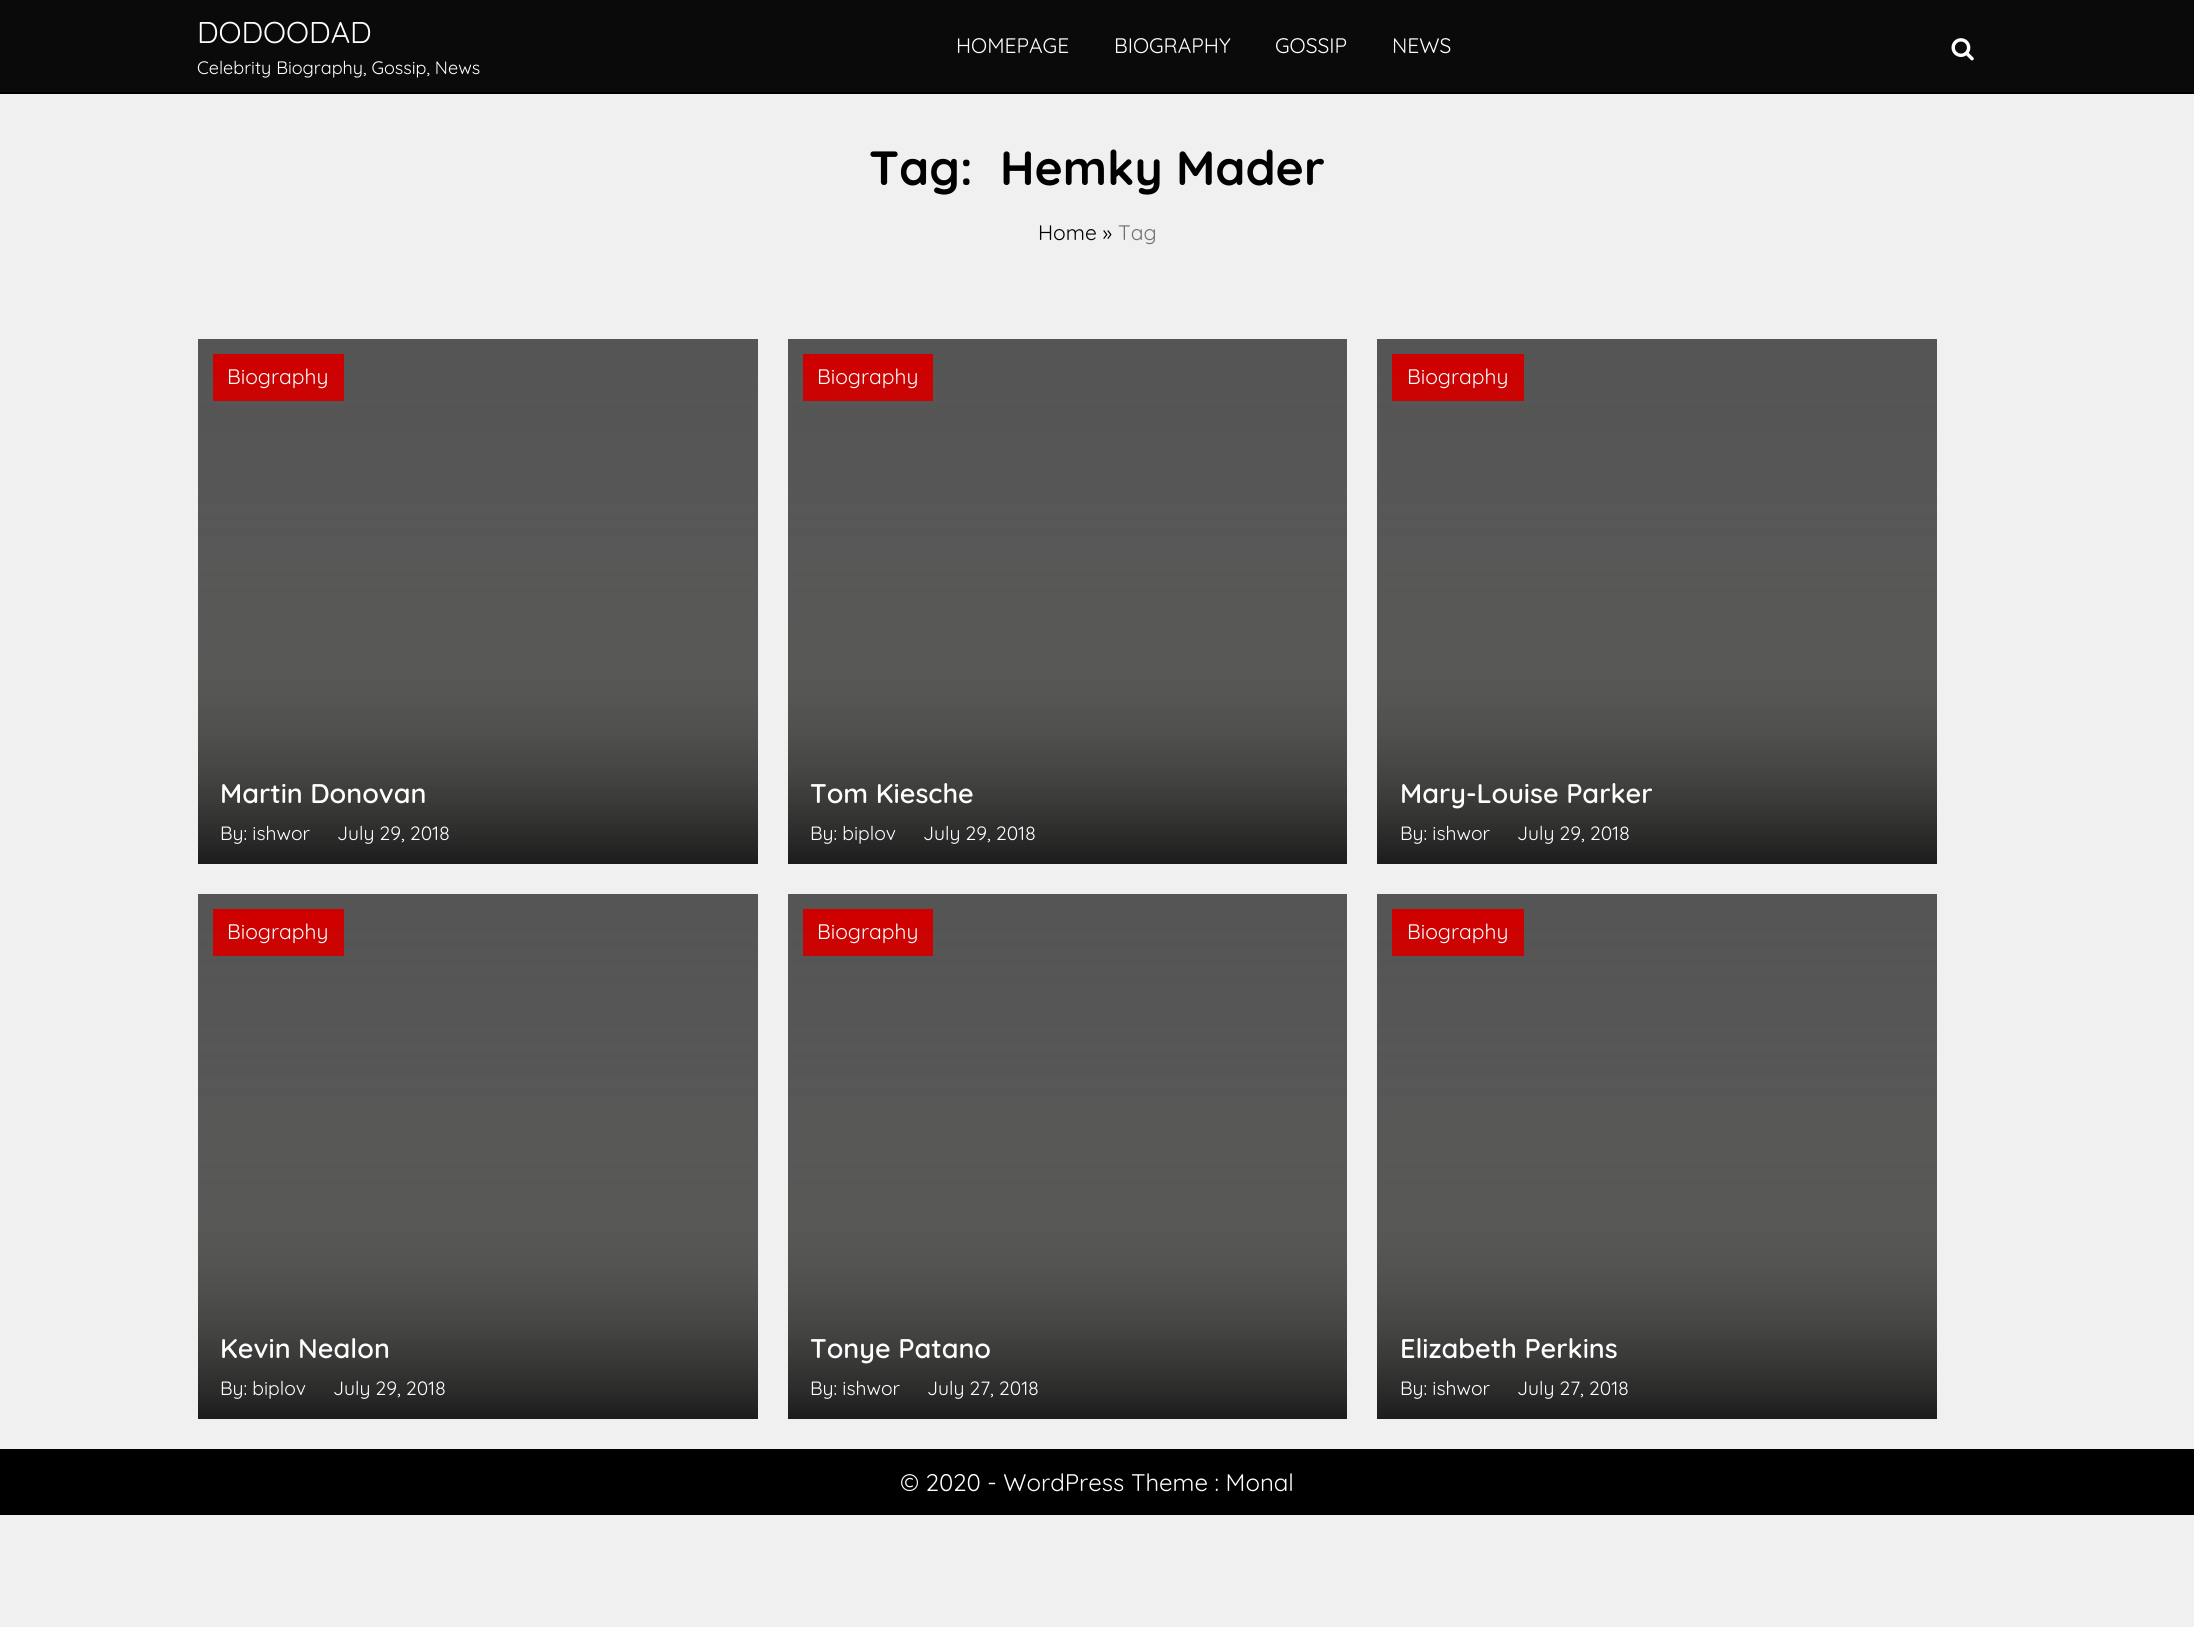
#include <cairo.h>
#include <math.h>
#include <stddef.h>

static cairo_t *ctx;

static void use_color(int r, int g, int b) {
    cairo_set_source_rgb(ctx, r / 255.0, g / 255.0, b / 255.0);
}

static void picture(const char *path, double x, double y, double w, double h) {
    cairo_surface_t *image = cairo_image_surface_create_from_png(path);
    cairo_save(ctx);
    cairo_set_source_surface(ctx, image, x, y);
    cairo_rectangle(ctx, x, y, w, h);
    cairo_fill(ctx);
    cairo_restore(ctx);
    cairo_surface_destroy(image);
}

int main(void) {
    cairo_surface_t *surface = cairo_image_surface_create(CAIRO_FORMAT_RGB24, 2194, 1627);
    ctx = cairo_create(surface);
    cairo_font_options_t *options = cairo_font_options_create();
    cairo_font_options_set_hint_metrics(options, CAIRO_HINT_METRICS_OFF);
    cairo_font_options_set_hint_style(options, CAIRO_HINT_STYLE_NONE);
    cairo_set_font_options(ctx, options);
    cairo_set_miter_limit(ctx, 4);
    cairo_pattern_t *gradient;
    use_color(240, 240, 240);
    cairo_paint(ctx);
    use_color(10, 10, 10);
    cairo_rectangle(ctx, 0, 0, 2194, 92);
    cairo_fill(ctx);
    use_color(0, 0, 0);
    cairo_rectangle(ctx, 0, 92, 2194, 2);
    cairo_fill(ctx);
    cairo_select_font_face(ctx, "Quicksand", CAIRO_FONT_SLANT_NORMAL, CAIRO_FONT_WEIGHT_NORMAL);
    cairo_set_font_size(ctx, 30);
    use_color(255, 255, 255);
    cairo_move_to(ctx, 197, 43);
    cairo_show_text(ctx, "DODOODAD");
    cairo_set_font_size(ctx, 18);
    cairo_move_to(ctx, 197, 74);
    cairo_show_text(ctx, "Celebrity Biography, Gossip, News");
    cairo_set_font_size(ctx, 21);
    cairo_move_to(ctx, 956, 53);
    cairo_show_text(ctx, "HOMEPAGE");
    cairo_move_to(ctx, 1114, 53);
    cairo_show_text(ctx, "BIOGRAPHY");
    cairo_move_to(ctx, 1275, 53);
    cairo_show_text(ctx, "GOSSIP");
    cairo_move_to(ctx, 1392, 53);
    cairo_show_text(ctx, "NEWS");
    picture("img1.png", 1951, 38, 23, 23);
    cairo_select_font_face(ctx, "Quicksand", CAIRO_FONT_SLANT_NORMAL, CAIRO_FONT_WEIGHT_BOLD);
    cairo_set_font_size(ctx, 48);
    use_color(0, 0, 0);
    cairo_move_to(ctx, 869, 185);
    cairo_show_text(ctx, "Tag:");
    cairo_move_to(ctx, 1000, 185);
    cairo_show_text(ctx, "Hemky Mader");
    cairo_select_font_face(ctx, "Quicksand", CAIRO_FONT_SLANT_NORMAL, CAIRO_FONT_WEIGHT_NORMAL);
    cairo_set_font_size(ctx, 21);
    cairo_move_to(ctx, 1038, 240);
    cairo_show_text(ctx, "Home »");
    use_color(113, 113, 113);
    cairo_move_to(ctx, 1118, 240);
    cairo_show_text(ctx, "Tag");
    use_color(85, 85, 85);
    cairo_rectangle(ctx, 198, 339, 560, 523);
    cairo_fill(ctx);
    use_color(206, 0, 0);
    cairo_rectangle(ctx, 213, 354, 131, 47);
    cairo_fill(ctx);
    use_color(255, 255, 255);
    cairo_move_to(ctx, 227, 384);
    cairo_show_text(ctx, "Biography");
    gradient = cairo_pattern_create_linear(478, 339, 478, 864);
    cairo_pattern_add_color_stop_rgba(gradient, 0, 0.396, 0.392, 0.376, 0);
    cairo_pattern_add_color_stop_rgba(gradient, 0.6, 0.396, 0.392, 0.376, 0.2);
    cairo_pattern_add_color_stop_rgba(gradient, 1, 0.11, 0.11, 0.11, 1);
    cairo_set_source(ctx, gradient);
    cairo_pattern_destroy(gradient);
    cairo_rectangle(ctx, 198, 373, 560, 491);
    cairo_fill(ctx);
    cairo_select_font_face(ctx, "Quicksand SemiBold", CAIRO_FONT_SLANT_NORMAL, CAIRO_FONT_WEIGHT_NORMAL);
    cairo_set_font_size(ctx, 27);
    use_color(255, 255, 255);
    cairo_move_to(ctx, 220, 803);
    cairo_show_text(ctx, "Martin Donovan");
    cairo_select_font_face(ctx, "Quicksand", CAIRO_FONT_SLANT_NORMAL, CAIRO_FONT_WEIGHT_NORMAL);
    cairo_set_font_size(ctx, 19.25);
    cairo_move_to(ctx, 220, 840);
    cairo_show_text(ctx, "By: ishwor");
    cairo_move_to(ctx, 337, 840);
    cairo_show_text(ctx, "July 29, 2018");
    use_color(85, 85, 85);
    cairo_rectangle(ctx, 788, 339, 559, 523);
    cairo_fill(ctx);
    use_color(206, 0, 0);
    cairo_rectangle(ctx, 803, 354, 130, 47);
    cairo_fill(ctx);
    cairo_set_font_size(ctx, 21);
    use_color(255, 255, 255);
    cairo_move_to(ctx, 817, 384);
    cairo_show_text(ctx, "Biography");
    gradient = cairo_pattern_create_linear(1067, 339, 1067, 864);
    cairo_pattern_add_color_stop_rgba(gradient, 0, 0.396, 0.392, 0.376, 0);
    cairo_pattern_add_color_stop_rgba(gradient, 0.6, 0.396, 0.392, 0.376, 0.2);
    cairo_pattern_add_color_stop_rgba(gradient, 1, 0.11, 0.11, 0.11, 1);
    cairo_set_source(ctx, gradient);
    cairo_pattern_destroy(gradient);
    cairo_rectangle(ctx, 788, 373, 559, 491);
    cairo_fill(ctx);
    cairo_select_font_face(ctx, "Quicksand SemiBold", CAIRO_FONT_SLANT_NORMAL, CAIRO_FONT_WEIGHT_NORMAL);
    cairo_set_font_size(ctx, 27);
    use_color(255, 255, 255);
    cairo_move_to(ctx, 810, 803);
    cairo_show_text(ctx, "Tom Kiesche");
    cairo_select_font_face(ctx, "Quicksand", CAIRO_FONT_SLANT_NORMAL, CAIRO_FONT_WEIGHT_NORMAL);
    cairo_set_font_size(ctx, 19.25);
    cairo_move_to(ctx, 810, 840);
    cairo_show_text(ctx, "By: biplov");
    cairo_move_to(ctx, 923, 840);
    cairo_show_text(ctx, "July 29, 2018");
    use_color(85, 85, 85);
    cairo_rectangle(ctx, 1377, 339, 560, 523);
    cairo_fill(ctx);
    use_color(206, 0, 0);
    cairo_rectangle(ctx, 1392, 354, 132, 47);
    cairo_fill(ctx);
    cairo_set_font_size(ctx, 21);
    use_color(255, 255, 255);
    cairo_move_to(ctx, 1407, 384);
    cairo_show_text(ctx, "Biography");
    gradient = cairo_pattern_create_linear(1657, 339, 1657, 864);
    cairo_pattern_add_color_stop_rgba(gradient, 0, 0.396, 0.392, 0.376, 0);
    cairo_pattern_add_color_stop_rgba(gradient, 0.6, 0.396, 0.392, 0.376, 0.2);
    cairo_pattern_add_color_stop_rgba(gradient, 1, 0.11, 0.11, 0.11, 1);
    cairo_set_source(ctx, gradient);
    cairo_pattern_destroy(gradient);
    cairo_rectangle(ctx, 1377, 373, 560, 491);
    cairo_fill(ctx);
    cairo_select_font_face(ctx, "Quicksand SemiBold", CAIRO_FONT_SLANT_NORMAL, CAIRO_FONT_WEIGHT_NORMAL);
    cairo_set_font_size(ctx, 27);
    use_color(255, 255, 255);
    cairo_move_to(ctx, 1400, 803);
    cairo_show_text(ctx, "Mary-Louise Parker");
    cairo_select_font_face(ctx, "Quicksand", CAIRO_FONT_SLANT_NORMAL, CAIRO_FONT_WEIGHT_NORMAL);
    cairo_set_font_size(ctx, 19.25);
    cairo_move_to(ctx, 1400, 840);
    cairo_show_text(ctx, "By: ishwor");
    cairo_move_to(ctx, 1517, 840);
    cairo_show_text(ctx, "July 29, 2018");
    use_color(85, 85, 85);
    cairo_rectangle(ctx, 198, 894, 560, 523);
    cairo_fill(ctx);
    use_color(206, 0, 0);
    cairo_rectangle(ctx, 213, 909, 131, 47);
    cairo_fill(ctx);
    cairo_set_font_size(ctx, 21);
    use_color(255, 255, 255);
    cairo_move_to(ctx, 227, 939);
    cairo_show_text(ctx, "Biography");
    gradient = cairo_pattern_create_linear(478, 894, 478, 1419);
    cairo_pattern_add_color_stop_rgba(gradient, 0, 0.396, 0.392, 0.376, 0);
    cairo_pattern_add_color_stop_rgba(gradient, 0.6, 0.396, 0.392, 0.376, 0.2);
    cairo_pattern_add_color_stop_rgba(gradient, 1, 0.11, 0.11, 0.11, 1);
    cairo_set_source(ctx, gradient);
    cairo_pattern_destroy(gradient);
    cairo_rectangle(ctx, 198, 928, 560, 491);
    cairo_fill(ctx);
    cairo_select_font_face(ctx, "Quicksand SemiBold", CAIRO_FONT_SLANT_NORMAL, CAIRO_FONT_WEIGHT_NORMAL);
    cairo_set_font_size(ctx, 27);
    use_color(255, 255, 255);
    cairo_move_to(ctx, 220, 1358);
    cairo_show_text(ctx, "Kevin Nealon");
    cairo_select_font_face(ctx, "Quicksand", CAIRO_FONT_SLANT_NORMAL, CAIRO_FONT_WEIGHT_NORMAL);
    cairo_set_font_size(ctx, 19.25);
    cairo_move_to(ctx, 220, 1395);
    cairo_show_text(ctx, "By: biplov");
    cairo_move_to(ctx, 333, 1395);
    cairo_show_text(ctx, "July 29, 2018");
    use_color(85, 85, 85);
    cairo_rectangle(ctx, 788, 894, 559, 523);
    cairo_fill(ctx);
    use_color(206, 0, 0);
    cairo_rectangle(ctx, 803, 909, 130, 47);
    cairo_fill(ctx);
    cairo_set_font_size(ctx, 21);
    use_color(255, 255, 255);
    cairo_move_to(ctx, 817, 939);
    cairo_show_text(ctx, "Biography");
    gradient = cairo_pattern_create_linear(1067, 894, 1067, 1419);
    cairo_pattern_add_color_stop_rgba(gradient, 0, 0.396, 0.392, 0.376, 0);
    cairo_pattern_add_color_stop_rgba(gradient, 0.6, 0.396, 0.392, 0.376, 0.2);
    cairo_pattern_add_color_stop_rgba(gradient, 1, 0.11, 0.11, 0.11, 1);
    cairo_set_source(ctx, gradient);
    cairo_pattern_destroy(gradient);
    cairo_rectangle(ctx, 788, 928, 559, 491);
    cairo_fill(ctx);
    cairo_select_font_face(ctx, "Quicksand SemiBold", CAIRO_FONT_SLANT_NORMAL, CAIRO_FONT_WEIGHT_NORMAL);
    cairo_set_font_size(ctx, 27);
    use_color(255, 255, 255);
    cairo_move_to(ctx, 810, 1358);
    cairo_show_text(ctx, "Tonye Patano");
    cairo_select_font_face(ctx, "Quicksand", CAIRO_FONT_SLANT_NORMAL, CAIRO_FONT_WEIGHT_NORMAL);
    cairo_set_font_size(ctx, 19.25);
    cairo_move_to(ctx, 810, 1395);
    cairo_show_text(ctx, "By: ishwor");
    cairo_move_to(ctx, 927, 1395);
    cairo_show_text(ctx, "July 27, 2018");
    use_color(85, 85, 85);
    cairo_rectangle(ctx, 1377, 894, 560, 523);
    cairo_fill(ctx);
    use_color(206, 0, 0);
    cairo_rectangle(ctx, 1392, 909, 132, 47);
    cairo_fill(ctx);
    cairo_set_font_size(ctx, 21);
    use_color(255, 255, 255);
    cairo_move_to(ctx, 1407, 939);
    cairo_show_text(ctx, "Biography");
    gradient = cairo_pattern_create_linear(1657, 894, 1657, 1419);
    cairo_pattern_add_color_stop_rgba(gradient, 0, 0.396, 0.392, 0.376, 0);
    cairo_pattern_add_color_stop_rgba(gradient, 0.6, 0.396, 0.392, 0.376, 0.2);
    cairo_pattern_add_color_stop_rgba(gradient, 1, 0.11, 0.11, 0.11, 1);
    cairo_set_source(ctx, gradient);
    cairo_pattern_destroy(gradient);
    cairo_rectangle(ctx, 1377, 928, 560, 491);
    cairo_fill(ctx);
    cairo_select_font_face(ctx, "Quicksand SemiBold", CAIRO_FONT_SLANT_NORMAL, CAIRO_FONT_WEIGHT_NORMAL);
    cairo_set_font_size(ctx, 27);
    use_color(255, 255, 255);
    cairo_move_to(ctx, 1400, 1358);
    cairo_show_text(ctx, "Elizabeth Perkins");
    cairo_select_font_face(ctx, "Quicksand", CAIRO_FONT_SLANT_NORMAL, CAIRO_FONT_WEIGHT_NORMAL);
    cairo_set_font_size(ctx, 19.25);
    cairo_move_to(ctx, 1400, 1395);
    cairo_show_text(ctx, "By: ishwor");
    cairo_move_to(ctx, 1517, 1395);
    cairo_show_text(ctx, "July 27, 2018");
    use_color(0, 0, 0);
    cairo_rectangle(ctx, 0, 1449, 2194, 66);
    cairo_fill(ctx);
    cairo_set_font_size(ctx, 24);
    use_color(255, 255, 255);
    cairo_move_to(ctx, 900, 1491);
    cairo_show_text(ctx, "© 2020 - WordPress Theme : Monal");
    cairo_surface_write_to_png(surface, "result.png");
    cairo_font_options_destroy(options);
    cairo_destroy(ctx);
    cairo_surface_destroy(surface);
    return 0;
}
